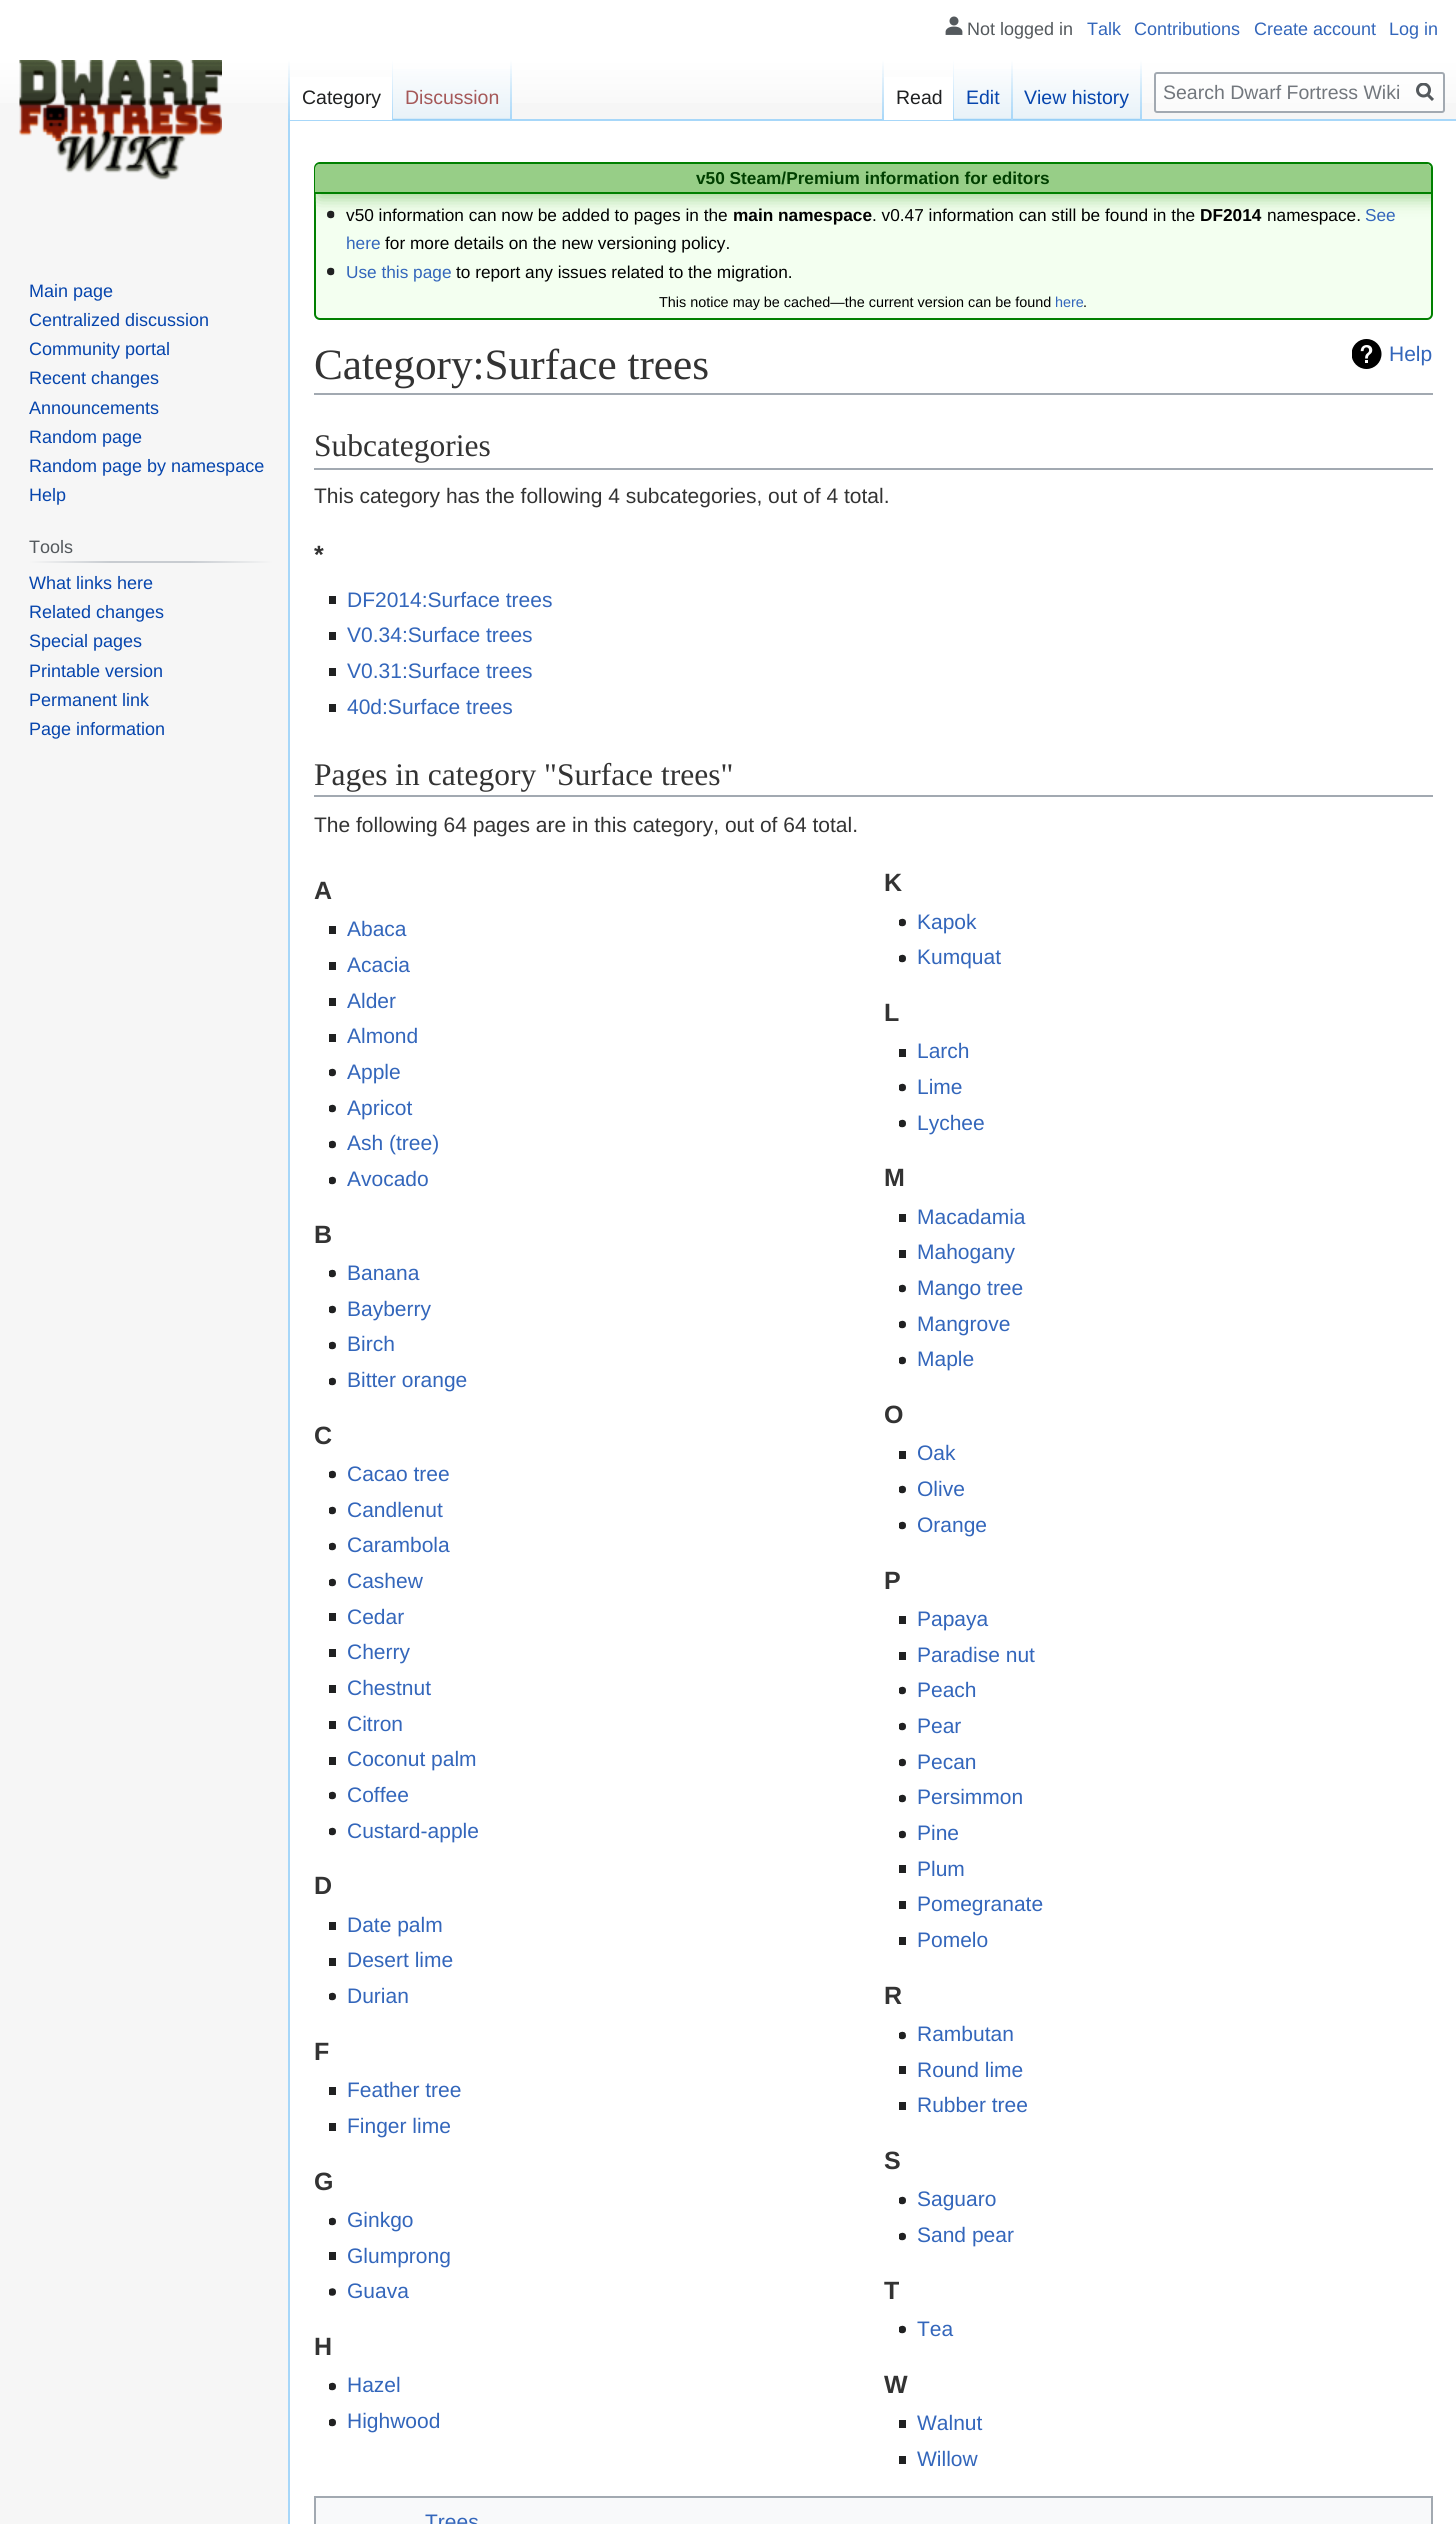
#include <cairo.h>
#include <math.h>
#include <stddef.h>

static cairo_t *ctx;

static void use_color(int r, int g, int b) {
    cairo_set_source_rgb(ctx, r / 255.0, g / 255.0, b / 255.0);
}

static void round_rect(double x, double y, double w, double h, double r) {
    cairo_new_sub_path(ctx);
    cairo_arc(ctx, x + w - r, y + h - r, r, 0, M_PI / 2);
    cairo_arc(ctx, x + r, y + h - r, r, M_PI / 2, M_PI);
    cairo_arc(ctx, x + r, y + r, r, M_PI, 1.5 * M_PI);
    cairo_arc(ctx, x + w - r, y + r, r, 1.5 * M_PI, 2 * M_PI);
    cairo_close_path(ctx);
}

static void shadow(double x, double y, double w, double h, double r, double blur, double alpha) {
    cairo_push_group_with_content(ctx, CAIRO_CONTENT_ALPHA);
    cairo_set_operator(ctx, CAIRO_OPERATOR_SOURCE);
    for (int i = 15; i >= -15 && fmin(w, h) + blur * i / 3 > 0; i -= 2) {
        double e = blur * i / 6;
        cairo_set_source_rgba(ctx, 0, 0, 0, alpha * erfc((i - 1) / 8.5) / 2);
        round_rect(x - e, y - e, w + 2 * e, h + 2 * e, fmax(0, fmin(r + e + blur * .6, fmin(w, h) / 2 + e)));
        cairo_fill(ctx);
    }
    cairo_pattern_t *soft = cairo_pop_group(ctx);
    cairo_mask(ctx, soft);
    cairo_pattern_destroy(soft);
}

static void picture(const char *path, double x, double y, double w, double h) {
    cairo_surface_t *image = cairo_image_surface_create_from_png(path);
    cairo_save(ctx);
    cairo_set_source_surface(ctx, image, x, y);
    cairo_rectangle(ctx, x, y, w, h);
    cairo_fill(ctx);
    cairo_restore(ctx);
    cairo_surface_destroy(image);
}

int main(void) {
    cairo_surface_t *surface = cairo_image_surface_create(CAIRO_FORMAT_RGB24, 1456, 2524);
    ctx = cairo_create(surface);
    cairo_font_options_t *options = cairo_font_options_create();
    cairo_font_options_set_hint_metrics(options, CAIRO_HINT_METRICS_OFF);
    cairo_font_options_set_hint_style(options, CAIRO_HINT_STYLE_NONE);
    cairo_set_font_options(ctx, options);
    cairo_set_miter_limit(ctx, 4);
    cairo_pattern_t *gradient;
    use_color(246, 246, 246);
    cairo_paint(ctx);
    gradient = cairo_pattern_create_linear(728, 0, 728, 120);
    cairo_pattern_add_color_stop_rgba(gradient, 0.5, 1, 1, 1, 1);
    cairo_pattern_add_color_stop_rgba(gradient, 1, 0.965, 0.965, 0.965, 1);
    cairo_set_source(ctx, gradient);
    cairo_pattern_destroy(gradient);
    cairo_rectangle(ctx, 0, 0, 1456, 103);
    cairo_fill(ctx);
    picture("img1.png", 945, 16, 18, 19);
    cairo_select_font_face(ctx, "Liberation Sans", CAIRO_FONT_SLANT_NORMAL, CAIRO_FONT_WEIGHT_NORMAL);
    cairo_set_font_size(ctx, 18);
    use_color(84, 89, 93);
    cairo_move_to(ctx, 967, 35);
    cairo_show_text(ctx, "Not logged in");
    use_color(51, 102, 187);
    cairo_move_to(ctx, 1087, 35);
    cairo_show_text(ctx, "Talk");
    cairo_move_to(ctx, 1134, 35);
    cairo_show_text(ctx, "Contributions");
    cairo_move_to(ctx, 1254, 35);
    cairo_show_text(ctx, "Create account");
    cairo_move_to(ctx, 1389, 35);
    cairo_show_text(ctx, "Log in");
    use_color(167, 215, 249);
    cairo_rectangle(ctx, 288, 119, 1168, 2);
    cairo_fill(ctx);
    cairo_rectangle(ctx, 288, 119, 2, 2405);
    cairo_fill(ctx);
    gradient = cairo_pattern_create_linear(289, 60, 289, 120);
    cairo_pattern_add_color_stop_rgba(gradient, 0, 0.655, 0.843, 0.976, 0);
    cairo_pattern_add_color_stop_rgba(gradient, 1, 0.655, 0.843, 0.976, 1);
    cairo_set_source(ctx, gradient);
    cairo_pattern_destroy(gradient);
    cairo_rectangle(ctx, 288, 60, 2, 60);
    cairo_fill(ctx);
    use_color(255, 255, 255);
    cairo_rectangle(ctx, 290, 77, 102, 43);
    cairo_fill(ctx);
    gradient = cairo_pattern_create_linear(392, 60, 392, 120);
    cairo_pattern_add_color_stop_rgba(gradient, 0, 1, 1, 1, 1);
    cairo_pattern_add_color_stop_rgba(gradient, 1, 0.655, 0.843, 0.976, 1);
    cairo_set_source(ctx, gradient);
    cairo_pattern_destroy(gradient);
    cairo_rectangle(ctx, 392, 60, 1, 60);
    cairo_fill(ctx);
    cairo_set_font_size(ctx, 19.5);
    use_color(32, 33, 34);
    cairo_move_to(ctx, 302, 104);
    cairo_show_text(ctx, "Category");
    gradient = cairo_pattern_create_linear(452, 120, 452, 60);
    cairo_pattern_add_color_stop_rgba(gradient, 0, 0.467, 0.757, 0.965, 1);
    cairo_pattern_add_color_stop_rgba(gradient, 0.03, 0.91, 0.949, 0.973, 1);
    cairo_pattern_add_color_stop_rgba(gradient, 1, 1, 1, 1, 1);
    cairo_set_source(ctx, gradient);
    cairo_pattern_destroy(gradient);
    cairo_rectangle(ctx, 393, 69, 119, 51);
    cairo_fill(ctx);
    gradient = cairo_pattern_create_linear(511, 60, 511, 120);
    cairo_pattern_add_color_stop_rgba(gradient, 0, 0.655, 0.843, 0.976, 0);
    cairo_pattern_add_color_stop_rgba(gradient, 1, 0.655, 0.843, 0.976, 1);
    cairo_set_source(ctx, gradient);
    cairo_pattern_destroy(gradient);
    cairo_rectangle(ctx, 510, 60, 2, 60);
    cairo_fill(ctx);
    use_color(165, 88, 88);
    cairo_move_to(ctx, 405, 104);
    cairo_show_text(ctx, "Discussion");
    gradient = cairo_pattern_create_linear(883, 60, 883, 120);
    cairo_pattern_add_color_stop_rgba(gradient, 0, 0.655, 0.843, 0.976, 0);
    cairo_pattern_add_color_stop_rgba(gradient, 1, 0.655, 0.843, 0.976, 1);
    cairo_set_source(ctx, gradient);
    cairo_pattern_destroy(gradient);
    cairo_rectangle(ctx, 882, 60, 2, 60);
    cairo_fill(ctx);
    use_color(255, 255, 255);
    cairo_rectangle(ctx, 884, 77, 69, 43);
    cairo_fill(ctx);
    gradient = cairo_pattern_create_linear(953, 60, 953, 120);
    cairo_pattern_add_color_stop_rgba(gradient, 0, 1, 1, 1, 1);
    cairo_pattern_add_color_stop_rgba(gradient, 1, 0.655, 0.843, 0.976, 1);
    cairo_set_source(ctx, gradient);
    cairo_pattern_destroy(gradient);
    cairo_rectangle(ctx, 953, 60, 1, 60);
    cairo_fill(ctx);
    use_color(32, 33, 34);
    cairo_move_to(ctx, 896, 104);
    cairo_show_text(ctx, "Read");
    gradient = cairo_pattern_create_linear(983, 120, 983, 60);
    cairo_pattern_add_color_stop_rgba(gradient, 0, 0.467, 0.757, 0.965, 1);
    cairo_pattern_add_color_stop_rgba(gradient, 0.03, 0.91, 0.949, 0.973, 1);
    cairo_pattern_add_color_stop_rgba(gradient, 1, 1, 1, 1, 1);
    cairo_set_source(ctx, gradient);
    cairo_pattern_destroy(gradient);
    cairo_rectangle(ctx, 954, 69, 59, 51);
    cairo_fill(ctx);
    gradient = cairo_pattern_create_linear(1012, 60, 1012, 120);
    cairo_pattern_add_color_stop_rgba(gradient, 0, 0.655, 0.843, 0.976, 0);
    cairo_pattern_add_color_stop_rgba(gradient, 1, 0.655, 0.843, 0.976, 1);
    cairo_set_source(ctx, gradient);
    cairo_pattern_destroy(gradient);
    cairo_rectangle(ctx, 1011, 60, 2, 60);
    cairo_fill(ctx);
    use_color(6, 69, 173);
    cairo_move_to(ctx, 966, 104);
    cairo_show_text(ctx, "Edit");
    gradient = cairo_pattern_create_linear(1077, 120, 1077, 60);
    cairo_pattern_add_color_stop_rgba(gradient, 0, 0.467, 0.757, 0.965, 1);
    cairo_pattern_add_color_stop_rgba(gradient, 0.03, 0.91, 0.949, 0.973, 1);
    cairo_pattern_add_color_stop_rgba(gradient, 1, 1, 1, 1, 1);
    cairo_set_source(ctx, gradient);
    cairo_pattern_destroy(gradient);
    cairo_rectangle(ctx, 1013, 69, 129, 51);
    cairo_fill(ctx);
    gradient = cairo_pattern_create_linear(1141, 60, 1141, 120);
    cairo_pattern_add_color_stop_rgba(gradient, 0, 0.655, 0.843, 0.976, 0);
    cairo_pattern_add_color_stop_rgba(gradient, 1, 0.655, 0.843, 0.976, 1);
    cairo_set_source(ctx, gradient);
    cairo_pattern_destroy(gradient);
    cairo_rectangle(ctx, 1140, 60, 2, 60);
    cairo_fill(ctx);
    use_color(6, 69, 173);
    cairo_move_to(ctx, 1024, 104);
    cairo_show_text(ctx, "View history");
    cairo_set_source_rgba(ctx, 1, 1, 1, 0.5);
    round_rect(1155, 73, 289, 39, 2);
    cairo_fill_preserve(ctx);
    use_color(162, 169, 177);
    cairo_stroke(ctx);
    use_color(114, 119, 125);
    cairo_move_to(ctx, 1163, 99);
    cairo_show_text(ctx, "Search Dwarf Fortress Wiki");
    cairo_new_path(ctx);
    cairo_move_to(ctx, 1433, 100);
    cairo_line_to(ctx, 1427, 94);
    use_color(84, 89, 93);
    cairo_set_line_width(ctx, 3);
    cairo_stroke(ctx);
    cairo_save(ctx);
    cairo_rectangle(ctx, 1416, 83, 18, 19);
    cairo_clip(ctx);
    cairo_arc(ctx, 1423.5, 90, 6, 0, 2 * M_PI);
    cairo_stroke(ctx);
    cairo_restore(ctx);
    picture("img2.png", 19, 60, 203, 120);
    cairo_set_font_size(ctx, 18);
    use_color(6, 69, 173);
    cairo_move_to(ctx, 29, 297);
    cairo_show_text(ctx, "Main page");
    cairo_move_to(ctx, 29, 326);
    cairo_show_text(ctx, "Centralized discussion");
    cairo_move_to(ctx, 29, 355);
    cairo_show_text(ctx, "Community portal");
    cairo_move_to(ctx, 29, 384);
    cairo_show_text(ctx, "Recent changes");
    cairo_move_to(ctx, 29, 414);
    cairo_show_text(ctx, "Announcements");
    cairo_move_to(ctx, 29, 443);
    cairo_show_text(ctx, "Random page");
    cairo_move_to(ctx, 29, 472);
    cairo_show_text(ctx, "Random page by namespace");
    cairo_move_to(ctx, 29, 501);
    cairo_show_text(ctx, "Help");
    gradient = cairo_pattern_create_linear(29, 562, 273, 562);
    cairo_pattern_add_color_stop_rgba(gradient, 0, 0.965, 0.965, 0.965, 1);
    cairo_pattern_add_color_stop_rgba(gradient, 0.33, 0.784, 0.8, 0.82, 1);
    cairo_pattern_add_color_stop_rgba(gradient, 0.66, 0.784, 0.8, 0.82, 1);
    cairo_pattern_add_color_stop_rgba(gradient, 1, 0.965, 0.965, 0.965, 1);
    cairo_set_source(ctx, gradient);
    cairo_pattern_destroy(gradient);
    cairo_rectangle(ctx, 29, 561, 244, 2);
    cairo_fill(ctx);
    use_color(84, 89, 93);
    cairo_move_to(ctx, 29, 553);
    cairo_show_text(ctx, "Tools");
    use_color(6, 69, 173);
    cairo_move_to(ctx, 29, 589);
    cairo_show_text(ctx, "What links here");
    cairo_move_to(ctx, 29, 618);
    cairo_show_text(ctx, "Related changes");
    cairo_move_to(ctx, 29, 647);
    cairo_show_text(ctx, "Special pages");
    cairo_move_to(ctx, 29, 677);
    cairo_show_text(ctx, "Printable version");
    cairo_move_to(ctx, 29, 706);
    cairo_show_text(ctx, "Permanent link");
    cairo_move_to(ctx, 29, 735);
    cairo_show_text(ctx, "Page information");
    use_color(255, 255, 255);
    cairo_rectangle(ctx, 290, 121, 1166, 2403);
    cairo_fill(ctx);
    use_color(243, 255, 240);
    round_rect(315, 163, 1117, 156, 5);
    cairo_fill_preserve(ctx);
    use_color(0, 128, 0);
    cairo_set_line_width(ctx, 2);
    cairo_stroke(ctx);
    cairo_save(ctx);
    round_rect(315, 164, 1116, 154, 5);
    cairo_clip(ctx);
    use_color(151, 206, 135);
    shadow(318, 167, 1116, 30, 0, 9, 1);
    cairo_restore(ctx);
    use_color(151, 206, 135);
    cairo_new_path(ctx);
    cairo_move_to(ctx, 320, 164);
    cairo_line_to(ctx, 1426, 164);
    cairo_curve_to(ctx, 1429, 164, 1431, 166, 1431, 169);
    cairo_line_to(ctx, 1431, 194);
    cairo_line_to(ctx, 315, 194);
    cairo_line_to(ctx, 315, 169);
    cairo_curve_to(ctx, 315, 166, 317, 164, 320, 164);
    cairo_close_path(ctx);
    cairo_fill(ctx);
    use_color(0, 128, 0);
    cairo_rectangle(ctx, 315, 192, 1116, 2);
    cairo_fill(ctx);
    cairo_select_font_face(ctx, "Liberation Sans", CAIRO_FONT_SLANT_NORMAL, CAIRO_FONT_WEIGHT_BOLD);
    cairo_set_font_size(ctx, 17.25);
    use_color(0, 64, 0);
    cairo_move_to(ctx, 696, 184);
    cairo_show_text(ctx, "v50 Steam/Premium information for editors");
    picture("img3.png", 327, 210, 8, 9);
    cairo_select_font_face(ctx, "Liberation Sans", CAIRO_FONT_SLANT_NORMAL, CAIRO_FONT_WEIGHT_NORMAL);
    use_color(0, 0, 0);
    cairo_move_to(ctx, 346, 221);
    cairo_show_text(ctx, "v50 information can now be added to pages in the");
    cairo_select_font_face(ctx, "Liberation Sans", CAIRO_FONT_SLANT_NORMAL, CAIRO_FONT_WEIGHT_BOLD);
    cairo_move_to(ctx, 733, 221);
    cairo_show_text(ctx, "main namespace");
    cairo_select_font_face(ctx, "Liberation Sans", CAIRO_FONT_SLANT_NORMAL, CAIRO_FONT_WEIGHT_NORMAL);
    cairo_move_to(ctx, 872, 221);
    cairo_show_text(ctx, ". v0.47 information can still be found in the");
    cairo_select_font_face(ctx, "Liberation Sans", CAIRO_FONT_SLANT_NORMAL, CAIRO_FONT_WEIGHT_BOLD);
    cairo_move_to(ctx, 1200, 221);
    cairo_show_text(ctx, "DF2014");
    cairo_select_font_face(ctx, "Liberation Sans", CAIRO_FONT_SLANT_NORMAL, CAIRO_FONT_WEIGHT_NORMAL);
    cairo_move_to(ctx, 1267, 221);
    cairo_show_text(ctx, "namespace.");
    use_color(51, 102, 187);
    cairo_move_to(ctx, 1365, 221);
    cairo_show_text(ctx, "See");
    cairo_move_to(ctx, 346, 249);
    cairo_show_text(ctx, "here");
    use_color(0, 0, 0);
    cairo_move_to(ctx, 385, 249);
    cairo_show_text(ctx, "for more details on the new versioning policy.");
    picture("img4.png", 327, 267, 8, 9);
    use_color(51, 102, 187);
    cairo_move_to(ctx, 346, 278);
    cairo_show_text(ctx, "Use this page");
    use_color(0, 0, 0);
    cairo_move_to(ctx, 456, 278);
    cairo_show_text(ctx, "to report any issues related to the migration.");
    cairo_set_font_size(ctx, 14.4);
    cairo_move_to(ctx, 659, 307);
    cairo_show_text(ctx, "This notice may be cached—the current version can be found");
    use_color(51, 102, 187);
    cairo_move_to(ctx, 1055, 307);
    cairo_show_text(ctx, "here");
    use_color(0, 0, 0);
    cairo_move_to(ctx, 1083, 307);
    cairo_show_text(ctx, ".");
    use_color(162, 169, 177);
    cairo_rectangle(ctx, 314, 393, 1119, 2);
    cairo_fill(ctx);
    cairo_select_font_face(ctx, "Liberation Serif", CAIRO_FONT_SLANT_NORMAL, CAIRO_FONT_WEIGHT_NORMAL);
    cairo_set_font_size(ctx, 43.25);
    use_color(51, 51, 51);
    cairo_move_to(ctx, 314, 379);
    cairo_show_text(ctx, "Category:Surface trees");
    picture("img5.png", 1352, 339, 30, 30);
    cairo_select_font_face(ctx, "Liberation Sans", CAIRO_FONT_SLANT_NORMAL, CAIRO_FONT_WEIGHT_NORMAL);
    cairo_set_font_size(ctx, 21);
    use_color(51, 102, 187);
    cairo_move_to(ctx, 1389, 361);
    cairo_show_text(ctx, "Help");
    use_color(162, 169, 177);
    cairo_rectangle(ctx, 314, 468, 1119, 2);
    cairo_fill(ctx);
    cairo_select_font_face(ctx, "Liberation Serif", CAIRO_FONT_SLANT_NORMAL, CAIRO_FONT_WEIGHT_NORMAL);
    cairo_set_font_size(ctx, 31.5);
    use_color(51, 51, 51);
    cairo_move_to(ctx, 314, 456);
    cairo_show_text(ctx, "Subcategories");
    cairo_select_font_face(ctx, "Liberation Sans", CAIRO_FONT_SLANT_NORMAL, CAIRO_FONT_WEIGHT_NORMAL);
    cairo_set_font_size(ctx, 21);
    cairo_move_to(ctx, 314, 503);
    cairo_show_text(ctx, "This category has the following 4 subcategories, out of 4 total.");
    cairo_select_font_face(ctx, "Liberation Sans", CAIRO_FONT_SLANT_NORMAL, CAIRO_FONT_WEIGHT_BOLD);
    cairo_set_font_size(ctx, 25);
    cairo_move_to(ctx, 314, 563);
    cairo_show_text(ctx, "*");
    use_color(32, 33, 34);
    cairo_rectangle(ctx, 329, 596, 7, 8);
    cairo_fill(ctx);
    cairo_select_font_face(ctx, "Liberation Sans", CAIRO_FONT_SLANT_NORMAL, CAIRO_FONT_WEIGHT_NORMAL);
    cairo_set_font_size(ctx, 21);
    use_color(51, 102, 187);
    cairo_move_to(ctx, 347, 607);
    cairo_show_text(ctx, "DF2014:Surface trees");
    use_color(32, 33, 34);
    cairo_rectangle(ctx, 329, 632, 7, 8);
    cairo_fill(ctx);
    use_color(51, 102, 187);
    cairo_move_to(ctx, 347, 642);
    cairo_show_text(ctx, "V0.34:Surface trees");
    use_color(32, 33, 34);
    cairo_rectangle(ctx, 329, 668, 7, 8);
    cairo_fill(ctx);
    use_color(51, 102, 187);
    cairo_move_to(ctx, 347, 678);
    cairo_show_text(ctx, "V0.31:Surface trees");
    use_color(32, 33, 34);
    cairo_rectangle(ctx, 329, 704, 7, 8);
    cairo_fill(ctx);
    use_color(51, 102, 187);
    cairo_move_to(ctx, 347, 714);
    cairo_show_text(ctx, "40d:Surface trees");
    use_color(162, 169, 177);
    cairo_rectangle(ctx, 314, 795, 1119, 2);
    cairo_fill(ctx);
    cairo_select_font_face(ctx, "Liberation Serif", CAIRO_FONT_SLANT_NORMAL, CAIRO_FONT_WEIGHT_NORMAL);
    cairo_set_font_size(ctx, 31.5);
    use_color(51, 51, 51);
    cairo_move_to(ctx, 314, 785);
    cairo_show_text(ctx, "Pages in category \"Surface trees\"");
    cairo_select_font_face(ctx, "Liberation Sans", CAIRO_FONT_SLANT_NORMAL, CAIRO_FONT_WEIGHT_NORMAL);
    cairo_set_font_size(ctx, 21);
    cairo_move_to(ctx, 314, 832);
    cairo_show_text(ctx, "The following 64 pages are in this category, out of 64 total.");
    cairo_select_font_face(ctx, "Liberation Sans", CAIRO_FONT_SLANT_NORMAL, CAIRO_FONT_WEIGHT_BOLD);
    cairo_set_font_size(ctx, 25);
    cairo_move_to(ctx, 314, 899);
    cairo_show_text(ctx, "A");
    use_color(32, 33, 34);
    cairo_rectangle(ctx, 329, 926, 7, 8);
    cairo_fill(ctx);
    cairo_select_font_face(ctx, "Liberation Sans", CAIRO_FONT_SLANT_NORMAL, CAIRO_FONT_WEIGHT_NORMAL);
    cairo_set_font_size(ctx, 21);
    use_color(51, 102, 187);
    cairo_move_to(ctx, 347, 936);
    cairo_show_text(ctx, "Abaca");
    use_color(32, 33, 34);
    cairo_rectangle(ctx, 329, 962, 7, 8);
    cairo_fill(ctx);
    use_color(51, 102, 187);
    cairo_move_to(ctx, 347, 972);
    cairo_show_text(ctx, "Acacia");
    use_color(32, 33, 34);
    cairo_rectangle(ctx, 329, 998, 7, 8);
    cairo_fill(ctx);
    use_color(51, 102, 187);
    cairo_move_to(ctx, 347, 1008);
    cairo_show_text(ctx, "Alder");
    use_color(32, 33, 34);
    cairo_rectangle(ctx, 329, 1034, 7, 8);
    cairo_fill(ctx);
    use_color(51, 102, 187);
    cairo_move_to(ctx, 347, 1043);
    cairo_show_text(ctx, "Almond");
    picture("img6.png", 329, 1068, 7, 9);
    cairo_move_to(ctx, 347, 1079);
    cairo_show_text(ctx, "Apple");
    picture("img6.png", 329, 1104, 7, 9);
    cairo_move_to(ctx, 347, 1115);
    cairo_show_text(ctx, "Apricot");
    picture("img6.png", 329, 1140, 7, 9);
    cairo_move_to(ctx, 347, 1150);
    cairo_show_text(ctx, "Ash (tree)");
    picture("img6.png", 329, 1176, 7, 9);
    cairo_move_to(ctx, 347, 1186);
    cairo_show_text(ctx, "Avocado");
    cairo_select_font_face(ctx, "Liberation Sans", CAIRO_FONT_SLANT_NORMAL, CAIRO_FONT_WEIGHT_BOLD);
    cairo_set_font_size(ctx, 25);
    use_color(51, 51, 51);
    cairo_move_to(ctx, 884, 891);
    cairo_show_text(ctx, "K");
    picture("img6.png", 899, 918, 7, 9);
    cairo_select_font_face(ctx, "Liberation Sans", CAIRO_FONT_SLANT_NORMAL, CAIRO_FONT_WEIGHT_NORMAL);
    cairo_set_font_size(ctx, 21);
    use_color(51, 102, 187);
    cairo_move_to(ctx, 917, 929);
    cairo_show_text(ctx, "Kapok");
    picture("img6.png", 899, 954, 7, 9);
    cairo_move_to(ctx, 917, 964);
    cairo_show_text(ctx, "Kumquat");
    cairo_select_font_face(ctx, "Liberation Sans", CAIRO_FONT_SLANT_NORMAL, CAIRO_FONT_WEIGHT_BOLD);
    cairo_set_font_size(ctx, 25);
    use_color(51, 51, 51);
    cairo_move_to(ctx, 884, 1021);
    cairo_show_text(ctx, "L");
    use_color(32, 33, 34);
    cairo_rectangle(ctx, 899, 1049, 7, 8);
    cairo_fill(ctx);
    cairo_select_font_face(ctx, "Liberation Sans", CAIRO_FONT_SLANT_NORMAL, CAIRO_FONT_WEIGHT_NORMAL);
    cairo_set_font_size(ctx, 21);
    use_color(51, 102, 187);
    cairo_move_to(ctx, 917, 1058);
    cairo_show_text(ctx, "Larch");
    picture("img6.png", 899, 1083, 7, 9);
    cairo_move_to(ctx, 917, 1094);
    cairo_show_text(ctx, "Lime");
    picture("img6.png", 899, 1119, 7, 9);
    cairo_move_to(ctx, 917, 1130);
    cairo_show_text(ctx, "Lychee");
    cairo_select_font_face(ctx, "Liberation Sans", CAIRO_FONT_SLANT_NORMAL, CAIRO_FONT_WEIGHT_BOLD);
    cairo_set_font_size(ctx, 25);
    use_color(51, 51, 51);
    cairo_move_to(ctx, 314, 1243);
    cairo_show_text(ctx, "B");
    picture("img7.png", 329, 1269, 7, 9);
    cairo_select_font_face(ctx, "Liberation Sans", CAIRO_FONT_SLANT_NORMAL, CAIRO_FONT_WEIGHT_NORMAL);
    cairo_set_font_size(ctx, 21);
    use_color(51, 102, 187);
    cairo_move_to(ctx, 347, 1280);
    cairo_show_text(ctx, "Banana");
    picture("img6.png", 329, 1305, 7, 9);
    cairo_move_to(ctx, 347, 1316);
    cairo_show_text(ctx, "Bayberry");
    picture("img6.png", 329, 1341, 7, 9);
    cairo_move_to(ctx, 347, 1351);
    cairo_show_text(ctx, "Birch");
    picture("img6.png", 329, 1377, 7, 9);
    cairo_move_to(ctx, 347, 1387);
    cairo_show_text(ctx, "Bitter orange");
    cairo_select_font_face(ctx, "Liberation Sans", CAIRO_FONT_SLANT_NORMAL, CAIRO_FONT_WEIGHT_BOLD);
    cairo_set_font_size(ctx, 25);
    use_color(51, 51, 51);
    cairo_move_to(ctx, 884, 1186);
    cairo_show_text(ctx, "M");
    use_color(32, 33, 34);
    cairo_rectangle(ctx, 899, 1214, 7, 8);
    cairo_fill(ctx);
    cairo_select_font_face(ctx, "Liberation Sans", CAIRO_FONT_SLANT_NORMAL, CAIRO_FONT_WEIGHT_NORMAL);
    cairo_set_font_size(ctx, 21);
    use_color(51, 102, 187);
    cairo_move_to(ctx, 917, 1224);
    cairo_show_text(ctx, "Macadamia");
    use_color(32, 33, 34);
    cairo_rectangle(ctx, 899, 1250, 7, 8);
    cairo_fill(ctx);
    use_color(51, 102, 187);
    cairo_move_to(ctx, 917, 1259);
    cairo_show_text(ctx, "Mahogany");
    picture("img6.png", 899, 1284, 7, 9);
    cairo_move_to(ctx, 917, 1295);
    cairo_show_text(ctx, "Mango tree");
    picture("img6.png", 899, 1320, 7, 9);
    cairo_move_to(ctx, 917, 1331);
    cairo_show_text(ctx, "Mangrove");
    picture("img6.png", 899, 1356, 7, 9);
    cairo_move_to(ctx, 917, 1366);
    cairo_show_text(ctx, "Maple");
    cairo_select_font_face(ctx, "Liberation Sans", CAIRO_FONT_SLANT_NORMAL, CAIRO_FONT_WEIGHT_BOLD);
    cairo_set_font_size(ctx, 25);
    use_color(51, 51, 51);
    cairo_move_to(ctx, 314, 1444);
    cairo_show_text(ctx, "C");
    picture("img6.png", 329, 1470, 7, 9);
    cairo_select_font_face(ctx, "Liberation Sans", CAIRO_FONT_SLANT_NORMAL, CAIRO_FONT_WEIGHT_NORMAL);
    cairo_set_font_size(ctx, 21);
    use_color(51, 102, 187);
    cairo_move_to(ctx, 347, 1481);
    cairo_show_text(ctx, "Cacao tree");
    picture("img6.png", 329, 1506, 7, 9);
    cairo_move_to(ctx, 347, 1517);
    cairo_show_text(ctx, "Candlenut");
    picture("img6.png", 329, 1542, 7, 9);
    cairo_move_to(ctx, 347, 1552);
    cairo_show_text(ctx, "Carambola");
    picture("img6.png", 329, 1578, 7, 9);
    cairo_move_to(ctx, 347, 1588);
    cairo_show_text(ctx, "Cashew");
    use_color(32, 33, 34);
    cairo_rectangle(ctx, 329, 1613, 7, 8);
    cairo_fill(ctx);
    use_color(51, 102, 187);
    cairo_move_to(ctx, 347, 1624);
    cairo_show_text(ctx, "Cedar");
    use_color(32, 33, 34);
    cairo_rectangle(ctx, 329, 1649, 7, 8);
    cairo_fill(ctx);
    use_color(51, 102, 187);
    cairo_move_to(ctx, 347, 1659);
    cairo_show_text(ctx, "Cherry");
    use_color(32, 33, 34);
    cairo_rectangle(ctx, 329, 1685, 7, 8);
    cairo_fill(ctx);
    use_color(51, 102, 187);
    cairo_move_to(ctx, 347, 1695);
    cairo_show_text(ctx, "Chestnut");
    use_color(32, 33, 34);
    cairo_rectangle(ctx, 329, 1721, 7, 8);
    cairo_fill(ctx);
    use_color(51, 102, 187);
    cairo_move_to(ctx, 347, 1731);
    cairo_show_text(ctx, "Citron");
    use_color(32, 33, 34);
    cairo_rectangle(ctx, 329, 1757, 7, 8);
    cairo_fill(ctx);
    use_color(51, 102, 187);
    cairo_move_to(ctx, 347, 1766);
    cairo_show_text(ctx, "Coconut palm");
    picture("img6.png", 329, 1791, 7, 9);
    cairo_move_to(ctx, 347, 1802);
    cairo_show_text(ctx, "Coffee");
    picture("img6.png", 329, 1827, 7, 9);
    cairo_move_to(ctx, 347, 1838);
    cairo_show_text(ctx, "Custard-apple");
    cairo_select_font_face(ctx, "Liberation Sans", CAIRO_FONT_SLANT_NORMAL, CAIRO_FONT_WEIGHT_BOLD);
    cairo_set_font_size(ctx, 25);
    use_color(51, 51, 51);
    cairo_move_to(ctx, 884, 1423);
    cairo_show_text(ctx, "O");
    use_color(32, 33, 34);
    cairo_rectangle(ctx, 899, 1451, 7, 8);
    cairo_fill(ctx);
    cairo_select_font_face(ctx, "Liberation Sans", CAIRO_FONT_SLANT_NORMAL, CAIRO_FONT_WEIGHT_NORMAL);
    cairo_set_font_size(ctx, 21);
    use_color(51, 102, 187);
    cairo_move_to(ctx, 917, 1460);
    cairo_show_text(ctx, "Oak");
    picture("img6.png", 899, 1485, 7, 9);
    cairo_move_to(ctx, 917, 1496);
    cairo_show_text(ctx, "Olive");
    picture("img6.png", 899, 1521, 7, 9);
    cairo_move_to(ctx, 917, 1532);
    cairo_show_text(ctx, "Orange");
    cairo_select_font_face(ctx, "Liberation Sans", CAIRO_FONT_SLANT_NORMAL, CAIRO_FONT_WEIGHT_BOLD);
    cairo_set_font_size(ctx, 25);
    use_color(51, 51, 51);
    cairo_move_to(ctx, 314, 1894);
    cairo_show_text(ctx, "D");
    use_color(32, 33, 34);
    cairo_rectangle(ctx, 329, 1922, 7, 8);
    cairo_fill(ctx);
    cairo_select_font_face(ctx, "Liberation Sans", CAIRO_FONT_SLANT_NORMAL, CAIRO_FONT_WEIGHT_NORMAL);
    cairo_set_font_size(ctx, 21);
    use_color(51, 102, 187);
    cairo_move_to(ctx, 347, 1932);
    cairo_show_text(ctx, "Date palm");
    use_color(32, 33, 34);
    cairo_rectangle(ctx, 329, 1958, 7, 8);
    cairo_fill(ctx);
    use_color(51, 102, 187);
    cairo_move_to(ctx, 347, 1967);
    cairo_show_text(ctx, "Desert lime");
    picture("img6.png", 329, 1992, 7, 9);
    cairo_move_to(ctx, 347, 2003);
    cairo_show_text(ctx, "Durian");
    cairo_select_font_face(ctx, "Liberation Sans", CAIRO_FONT_SLANT_NORMAL, CAIRO_FONT_WEIGHT_BOLD);
    cairo_set_font_size(ctx, 25);
    use_color(51, 51, 51);
    cairo_move_to(ctx, 884, 1589);
    cairo_show_text(ctx, "P");
    use_color(32, 33, 34);
    cairo_rectangle(ctx, 899, 1616, 7, 8);
    cairo_fill(ctx);
    cairo_select_font_face(ctx, "Liberation Sans", CAIRO_FONT_SLANT_NORMAL, CAIRO_FONT_WEIGHT_NORMAL);
    cairo_set_font_size(ctx, 21);
    use_color(51, 102, 187);
    cairo_move_to(ctx, 917, 1626);
    cairo_show_text(ctx, "Papaya");
    use_color(32, 33, 34);
    cairo_rectangle(ctx, 899, 1652, 7, 8);
    cairo_fill(ctx);
    use_color(51, 102, 187);
    cairo_move_to(ctx, 917, 1662);
    cairo_show_text(ctx, "Paradise nut");
    picture("img6.png", 899, 1686, 7, 9);
    cairo_move_to(ctx, 917, 1697);
    cairo_show_text(ctx, "Peach");
    picture("img6.png", 899, 1722, 7, 9);
    cairo_move_to(ctx, 917, 1733);
    cairo_show_text(ctx, "Pear");
    picture("img6.png", 899, 1758, 7, 9);
    cairo_move_to(ctx, 917, 1769);
    cairo_show_text(ctx, "Pecan");
    picture("img6.png", 899, 1794, 7, 9);
    cairo_move_to(ctx, 917, 1804);
    cairo_show_text(ctx, "Persimmon");
    picture("img6.png", 899, 1830, 7, 9);
    cairo_move_to(ctx, 917, 1840);
    cairo_show_text(ctx, "Pine");
    use_color(32, 33, 34);
    cairo_rectangle(ctx, 899, 1865, 7, 8);
    cairo_fill(ctx);
    use_color(51, 102, 187);
    cairo_move_to(ctx, 917, 1876);
    cairo_show_text(ctx, "Plum");
    use_color(32, 33, 34);
    cairo_rectangle(ctx, 899, 1901, 7, 8);
    cairo_fill(ctx);
    use_color(51, 102, 187);
    cairo_move_to(ctx, 917, 1911);
    cairo_show_text(ctx, "Pomegranate");
    use_color(32, 33, 34);
    cairo_rectangle(ctx, 899, 1937, 7, 8);
    cairo_fill(ctx);
    use_color(51, 102, 187);
    cairo_move_to(ctx, 917, 1947);
    cairo_show_text(ctx, "Pomelo");
    cairo_select_font_face(ctx, "Liberation Sans", CAIRO_FONT_SLANT_NORMAL, CAIRO_FONT_WEIGHT_BOLD);
    cairo_set_font_size(ctx, 25);
    use_color(51, 51, 51);
    cairo_move_to(ctx, 314, 2060);
    cairo_show_text(ctx, "F");
    use_color(32, 33, 34);
    cairo_rectangle(ctx, 329, 2087, 7, 8);
    cairo_fill(ctx);
    cairo_select_font_face(ctx, "Liberation Sans", CAIRO_FONT_SLANT_NORMAL, CAIRO_FONT_WEIGHT_NORMAL);
    cairo_set_font_size(ctx, 21);
    use_color(51, 102, 187);
    cairo_move_to(ctx, 347, 2097);
    cairo_show_text(ctx, "Feather tree");
    use_color(32, 33, 34);
    cairo_rectangle(ctx, 329, 2123, 7, 8);
    cairo_fill(ctx);
    use_color(51, 102, 187);
    cairo_move_to(ctx, 347, 2133);
    cairo_show_text(ctx, "Finger lime");
    cairo_select_font_face(ctx, "Liberation Sans", CAIRO_FONT_SLANT_NORMAL, CAIRO_FONT_WEIGHT_BOLD);
    cairo_set_font_size(ctx, 25);
    use_color(51, 51, 51);
    cairo_move_to(ctx, 884, 2004);
    cairo_show_text(ctx, "R");
    picture("img7.png", 899, 2031, 7, 9);
    cairo_select_font_face(ctx, "Liberation Sans", CAIRO_FONT_SLANT_NORMAL, CAIRO_FONT_WEIGHT_NORMAL);
    cairo_set_font_size(ctx, 21);
    use_color(51, 102, 187);
    cairo_move_to(ctx, 917, 2041);
    cairo_show_text(ctx, "Rambutan");
    use_color(32, 33, 34);
    cairo_rectangle(ctx, 899, 2066, 7, 8);
    cairo_fill(ctx);
    use_color(51, 102, 187);
    cairo_move_to(ctx, 917, 2077);
    cairo_show_text(ctx, "Round lime");
    use_color(32, 33, 34);
    cairo_rectangle(ctx, 899, 2102, 7, 8);
    cairo_fill(ctx);
    use_color(51, 102, 187);
    cairo_move_to(ctx, 917, 2112);
    cairo_show_text(ctx, "Rubber tree");
    cairo_select_font_face(ctx, "Liberation Sans", CAIRO_FONT_SLANT_NORMAL, CAIRO_FONT_WEIGHT_BOLD);
    cairo_set_font_size(ctx, 25);
    use_color(51, 51, 51);
    cairo_move_to(ctx, 314, 2190);
    cairo_show_text(ctx, "G");
    picture("img6.png", 329, 2217, 7, 9);
    cairo_select_font_face(ctx, "Liberation Sans", CAIRO_FONT_SLANT_NORMAL, CAIRO_FONT_WEIGHT_NORMAL);
    cairo_set_font_size(ctx, 21);
    use_color(51, 102, 187);
    cairo_move_to(ctx, 347, 2227);
    cairo_show_text(ctx, "Ginkgo");
    use_color(32, 33, 34);
    cairo_rectangle(ctx, 329, 2252, 7, 8);
    cairo_fill(ctx);
    use_color(51, 102, 187);
    cairo_move_to(ctx, 347, 2263);
    cairo_show_text(ctx, "Glumprong");
    picture("img8.png", 329, 2288, 7, 8);
    cairo_move_to(ctx, 347, 2298);
    cairo_show_text(ctx, "Guava");
    cairo_select_font_face(ctx, "Liberation Sans", CAIRO_FONT_SLANT_NORMAL, CAIRO_FONT_WEIGHT_BOLD);
    cairo_set_font_size(ctx, 25);
    use_color(51, 51, 51);
    cairo_move_to(ctx, 884, 2169);
    cairo_show_text(ctx, "S");
    picture("img6.png", 899, 2196, 7, 9);
    cairo_select_font_face(ctx, "Liberation Sans", CAIRO_FONT_SLANT_NORMAL, CAIRO_FONT_WEIGHT_NORMAL);
    cairo_set_font_size(ctx, 21);
    use_color(51, 102, 187);
    cairo_move_to(ctx, 917, 2206);
    cairo_show_text(ctx, "Saguaro");
    picture("img6.png", 899, 2232, 7, 9);
    cairo_move_to(ctx, 917, 2242);
    cairo_show_text(ctx, "Sand pear");
    cairo_save(ctx);
    cairo_rectangle(ctx, 884, 2259, 549, 53);
    cairo_clip(ctx);
    cairo_select_font_face(ctx, "Liberation Sans", CAIRO_FONT_SLANT_NORMAL, CAIRO_FONT_WEIGHT_BOLD);
    cairo_set_font_size(ctx, 25);
    use_color(51, 51, 51);
    cairo_move_to(ctx, 884, 2299);
    cairo_show_text(ctx, "T");
    cairo_restore(ctx);
    picture("img6.png", 899, 2325, 7, 9);
    cairo_move_to(ctx, 917, 2336);
    cairo_show_text(ctx, "Tea");
    cairo_select_font_face(ctx, "Liberation Sans", CAIRO_FONT_SLANT_NORMAL, CAIRO_FONT_WEIGHT_BOLD);
    cairo_set_font_size(ctx, 25);
    use_color(51, 51, 51);
    cairo_move_to(ctx, 314, 2355);
    cairo_show_text(ctx, "H");
    picture("img6.png", 329, 2382, 7, 9);
    cairo_select_font_face(ctx, "Liberation Sans", CAIRO_FONT_SLANT_NORMAL, CAIRO_FONT_WEIGHT_NORMAL);
    cairo_set_font_size(ctx, 21);
    use_color(51, 102, 187);
    cairo_move_to(ctx, 347, 2392);
    cairo_show_text(ctx, "Hazel");
    picture("img6.png", 329, 2418, 7, 9);
    cairo_move_to(ctx, 347, 2428);
    cairo_show_text(ctx, "Highwood");
    cairo_select_font_face(ctx, "Liberation Sans", CAIRO_FONT_SLANT_NORMAL, CAIRO_FONT_WEIGHT_BOLD);
    cairo_set_font_size(ctx, 25);
    use_color(51, 51, 51);
    cairo_move_to(ctx, 884, 2393);
    cairo_show_text(ctx, "W");
    use_color(32, 33, 34);
    cairo_rectangle(ctx, 899, 2420, 7, 8);
    cairo_fill(ctx);
    cairo_select_font_face(ctx, "Liberation Sans", CAIRO_FONT_SLANT_NORMAL, CAIRO_FONT_WEIGHT_NORMAL);
    cairo_set_font_size(ctx, 21);
    use_color(51, 102, 187);
    cairo_move_to(ctx, 917, 2430);
    cairo_show_text(ctx, "Walnut");
    use_color(32, 33, 34);
    cairo_rectangle(ctx, 899, 2456, 7, 8);
    cairo_fill(ctx);
    use_color(51, 102, 187);
    cairo_move_to(ctx, 917, 2466);
    cairo_show_text(ctx, "Willow");
    use_color(248, 249, 250);
    cairo_rectangle(ctx, 315, 2497, 1117, 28);
    cairo_fill_preserve(ctx);
    use_color(162, 169, 177);
    cairo_stroke(ctx);
    use_color(51, 102, 187);
    cairo_move_to(ctx, 425, 2529);
    cairo_show_text(ctx, "Trees");
    cairo_surface_write_to_png(surface, "result.png");
    cairo_font_options_destroy(options);
    cairo_destroy(ctx);
    cairo_surface_destroy(surface);
    return 0;
}
